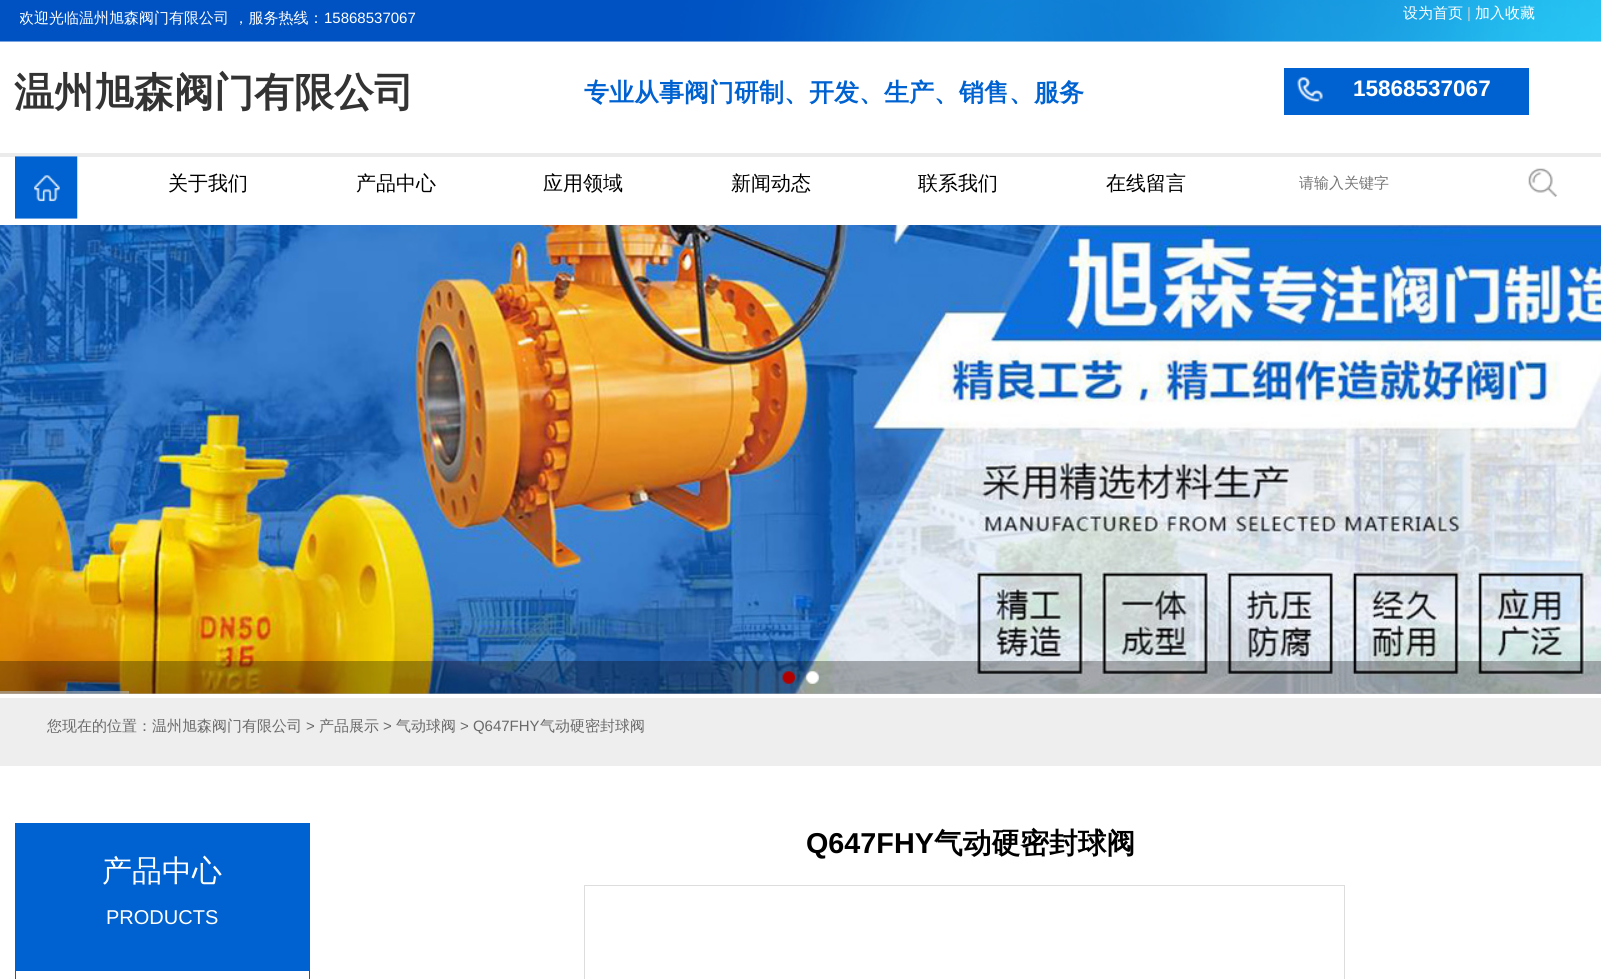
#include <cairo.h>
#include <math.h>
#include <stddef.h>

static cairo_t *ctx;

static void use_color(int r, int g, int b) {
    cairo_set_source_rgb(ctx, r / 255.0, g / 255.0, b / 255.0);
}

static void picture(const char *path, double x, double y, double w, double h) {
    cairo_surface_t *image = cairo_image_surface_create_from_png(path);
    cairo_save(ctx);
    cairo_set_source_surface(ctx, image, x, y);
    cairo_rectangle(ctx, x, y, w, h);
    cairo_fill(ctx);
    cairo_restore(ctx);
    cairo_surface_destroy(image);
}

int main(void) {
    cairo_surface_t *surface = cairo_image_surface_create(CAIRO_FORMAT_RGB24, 1601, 979);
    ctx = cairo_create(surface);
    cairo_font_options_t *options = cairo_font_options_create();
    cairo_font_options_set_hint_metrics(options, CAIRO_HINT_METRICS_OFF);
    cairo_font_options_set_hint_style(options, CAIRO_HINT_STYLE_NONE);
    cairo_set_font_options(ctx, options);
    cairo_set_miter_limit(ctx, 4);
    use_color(255, 255, 255);
    cairo_paint(ctx);
    picture("img1.png", 0, 0, 1601, 42);
    picture("img2.png", 0, 41, 1601, 1);
    cairo_save(ctx);
    cairo_rectangle(ctx, 20, 8, 1080, 35);
    cairo_clip(ctx);
    cairo_select_font_face(ctx, "WenQuanYi Zen Hei Medium", CAIRO_FONT_SLANT_NORMAL, CAIRO_FONT_WEIGHT_NORMAL);
    cairo_set_font_size(ctx, 15);
    use_color(255, 255, 255);
    cairo_move_to(ctx, 19, 23);
    cairo_show_text(ctx, "欢迎光临温州旭森阀门有限公司 ，服务热线：");
    cairo_restore(ctx);
    cairo_select_font_face(ctx, "Liberation Sans", CAIRO_FONT_SLANT_NORMAL, CAIRO_FONT_WEIGHT_NORMAL);
    cairo_set_font_size(ctx, 15);
    use_color(255, 255, 255);
    cairo_move_to(ctx, 324, 23);
    cairo_show_text(ctx, "15868537067");
    cairo_select_font_face(ctx, "WenQuanYi Zen Hei Medium", CAIRO_FONT_SLANT_NORMAL, CAIRO_FONT_WEIGHT_NORMAL);
    cairo_move_to(ctx, 1403, 18);
    cairo_show_text(ctx, "设为首页");
    cairo_select_font_face(ctx, "Liberation Sans", CAIRO_FONT_SLANT_NORMAL, CAIRO_FONT_WEIGHT_NORMAL);
    use_color(207, 207, 207);
    cairo_move_to(ctx, 1467, 18);
    cairo_show_text(ctx, "|");
    cairo_select_font_face(ctx, "WenQuanYi Zen Hei Medium", CAIRO_FONT_SLANT_NORMAL, CAIRO_FONT_WEIGHT_NORMAL);
    use_color(255, 255, 255);
    cairo_move_to(ctx, 1475, 18);
    cairo_show_text(ctx, "加入收藏");
    cairo_select_font_face(ctx, "WenQuanYi Zen Hei", CAIRO_FONT_SLANT_NORMAL, CAIRO_FONT_WEIGHT_BOLD);
    cairo_set_font_size(ctx, 40);
    use_color(51, 51, 51);
    cairo_move_to(ctx, 14, 106);
    cairo_show_text(ctx, "温州旭森阀门有限公司");
    use_color(0, 98, 208);
    cairo_rectangle(ctx, 1284, 68, 245, 47);
    cairo_fill(ctx);
    cairo_set_font_size(ctx, 25);
    cairo_move_to(ctx, 584, 101);
    cairo_show_text(ctx, "专业从事阀门研制、开发、生产、销售、服务");
    picture("img3.png", 1297, 77, 26, 25);
    cairo_select_font_face(ctx, "Liberation Sans", CAIRO_FONT_SLANT_NORMAL, CAIRO_FONT_WEIGHT_BOLD);
    cairo_set_font_size(ctx, 22.5);
    use_color(255, 255, 255);
    cairo_move_to(ctx, 1353, 96);
    cairo_show_text(ctx, "15868537067");
    use_color(235, 235, 235);
    cairo_rectangle(ctx, 0, 153, 1601, 4);
    cairo_fill(ctx);
    picture("img4.png", 15, 156, 63, 63);
    cairo_select_font_face(ctx, "WenQuanYi Zen Hei Medium", CAIRO_FONT_SLANT_NORMAL, CAIRO_FONT_WEIGHT_NORMAL);
    cairo_set_font_size(ctx, 20);
    use_color(0, 0, 0);
    cairo_move_to(ctx, 168, 190);
    cairo_show_text(ctx, "关于我们");
    cairo_move_to(ctx, 356, 190);
    cairo_show_text(ctx, "产品中心");
    cairo_move_to(ctx, 543, 190);
    cairo_show_text(ctx, "应用领域");
    cairo_move_to(ctx, 731, 190);
    cairo_show_text(ctx, "新闻动态");
    cairo_move_to(ctx, 918, 190);
    cairo_show_text(ctx, "联系我们");
    cairo_move_to(ctx, 1106, 190);
    cairo_show_text(ctx, "在线留言");
    cairo_set_font_size(ctx, 15);
    use_color(117, 117, 117);
    cairo_move_to(ctx, 1299, 188);
    cairo_show_text(ctx, "请输入关键字");
    picture("img5.png", 1528, 168, 30, 29);
    picture("img6.png", 0, 225, 1601, 469);
    cairo_set_source_rgba(ctx, 1, 1, 1, 0.6);
    cairo_rectangle(ctx, 0, 691, 129, 3);
    cairo_fill(ctx);
    cairo_set_source_rgba(ctx, 0, 0, 0, 0.3);
    cairo_rectangle(ctx, 0, 661, 1601, 33);
    cairo_fill(ctx);
    picture("img7.png", 782, 671, 14, 13);
    picture("img8.png", 806, 671, 13, 13);
    use_color(238, 238, 238);
    cairo_rectangle(ctx, 0, 698, 1601, 68);
    cairo_fill(ctx);
    use_color(105, 105, 105);
    cairo_move_to(ctx, 47, 731);
    cairo_show_text(ctx, "您现在的位置：温州旭森阀门有限公司");
    cairo_select_font_face(ctx, "Liberation Sans", CAIRO_FONT_SLANT_NORMAL, CAIRO_FONT_WEIGHT_NORMAL);
    cairo_move_to(ctx, 306, 731);
    cairo_show_text(ctx, ">");
    cairo_select_font_face(ctx, "WenQuanYi Zen Hei Medium", CAIRO_FONT_SLANT_NORMAL, CAIRO_FONT_WEIGHT_NORMAL);
    cairo_move_to(ctx, 319, 731);
    cairo_show_text(ctx, "产品展示");
    cairo_select_font_face(ctx, "Liberation Sans", CAIRO_FONT_SLANT_NORMAL, CAIRO_FONT_WEIGHT_NORMAL);
    cairo_move_to(ctx, 383, 731);
    cairo_show_text(ctx, ">");
    cairo_select_font_face(ctx, "WenQuanYi Zen Hei Medium", CAIRO_FONT_SLANT_NORMAL, CAIRO_FONT_WEIGHT_NORMAL);
    cairo_move_to(ctx, 396, 731);
    cairo_show_text(ctx, "气动球阀");
    cairo_select_font_face(ctx, "Liberation Sans", CAIRO_FONT_SLANT_NORMAL, CAIRO_FONT_WEIGHT_NORMAL);
    cairo_move_to(ctx, 460, 731);
    cairo_show_text(ctx, "> Q647FHY");
    cairo_select_font_face(ctx, "WenQuanYi Zen Hei Medium", CAIRO_FONT_SLANT_NORMAL, CAIRO_FONT_WEIGHT_NORMAL);
    cairo_move_to(ctx, 540, 731);
    cairo_show_text(ctx, "气动硬密封球阀");
    use_color(0, 98, 209);
    cairo_rectangle(ctx, 15, 823, 295, 148);
    cairo_fill(ctx);
    cairo_select_font_face(ctx, "Liberation Sans", CAIRO_FONT_SLANT_NORMAL, CAIRO_FONT_WEIGHT_BOLD);
    cairo_set_font_size(ctx, 28.75);
    use_color(0, 0, 0);
    cairo_move_to(ctx, 806, 853);
    cairo_show_text(ctx, "Q647FHY");
    cairo_select_font_face(ctx, "WenQuanYi Zen Hei", CAIRO_FONT_SLANT_NORMAL, CAIRO_FONT_WEIGHT_BOLD);
    cairo_move_to(ctx, 934, 853);
    cairo_show_text(ctx, "气动硬密封球阀");
    cairo_rectangle(ctx, 584.5, 885.5, 760, 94);
    use_color(221, 221, 221);
    cairo_set_line_width(ctx, 1);
    cairo_stroke(ctx);
    cairo_rectangle(ctx, 15.5, 835.5, 294, 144);
    use_color(0, 98, 209);
    cairo_stroke(ctx);
    cairo_select_font_face(ctx, "WenQuanYi Zen Hei Medium", CAIRO_FONT_SLANT_NORMAL, CAIRO_FONT_WEIGHT_NORMAL);
    cairo_set_font_size(ctx, 30);
    use_color(255, 255, 255);
    cairo_move_to(ctx, 102, 881);
    cairo_show_text(ctx, "产品中心");
    cairo_select_font_face(ctx, "Liberation Sans", CAIRO_FONT_SLANT_NORMAL, CAIRO_FONT_WEIGHT_NORMAL);
    cairo_set_font_size(ctx, 20);
    cairo_move_to(ctx, 106, 924);
    cairo_show_text(ctx, "PRODUCTS");
    cairo_surface_write_to_png(surface, "result.png");
    cairo_font_options_destroy(options);
    cairo_destroy(ctx);
    cairo_surface_destroy(surface);
    return 0;
}
